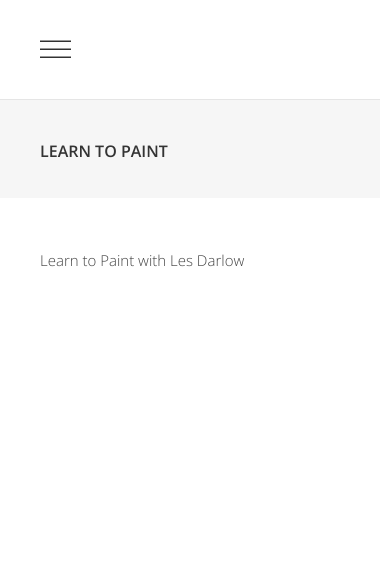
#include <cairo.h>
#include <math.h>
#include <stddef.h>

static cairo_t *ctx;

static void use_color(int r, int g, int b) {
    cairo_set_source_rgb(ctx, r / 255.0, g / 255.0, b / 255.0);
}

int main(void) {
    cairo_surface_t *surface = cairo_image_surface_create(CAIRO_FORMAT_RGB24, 380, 575);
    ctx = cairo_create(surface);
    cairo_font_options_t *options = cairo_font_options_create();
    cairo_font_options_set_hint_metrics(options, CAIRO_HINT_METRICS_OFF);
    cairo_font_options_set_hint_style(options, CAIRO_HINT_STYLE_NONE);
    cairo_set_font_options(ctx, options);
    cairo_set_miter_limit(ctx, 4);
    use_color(255, 255, 255);
    cairo_paint(ctx);
    use_color(229, 229, 229);
    cairo_rectangle(ctx, 0, 99, 380, 1);
    cairo_fill(ctx);
    use_color(51, 51, 51);
    cairo_rectangle(ctx, 40, 41, 31, 1);
    cairo_fill(ctx);
    use_color(153, 153, 153);
    cairo_rectangle(ctx, 40, 40, 31, 1);
    cairo_fill(ctx);
    use_color(51, 51, 51);
    cairo_rectangle(ctx, 40, 49, 31, 1);
    cairo_fill(ctx);
    use_color(153, 153, 153);
    cairo_rectangle(ctx, 40, 48, 31, 1);
    cairo_fill(ctx);
    use_color(51, 51, 51);
    cairo_rectangle(ctx, 40, 57, 31, 1);
    cairo_fill(ctx);
    use_color(153, 153, 153);
    cairo_rectangle(ctx, 40, 56, 31, 1);
    cairo_fill(ctx);
    use_color(246, 246, 246);
    cairo_rectangle(ctx, 0, 100, 380, 98);
    cairo_fill(ctx);
    cairo_select_font_face(ctx, "Open Sans SemiBold", CAIRO_FONT_SLANT_NORMAL, CAIRO_FONT_WEIGHT_NORMAL);
    cairo_set_font_size(ctx, 16);
    use_color(51, 51, 51);
    cairo_move_to(ctx, 40, 157);
    cairo_show_text(ctx, "LEARN TO PAINT");
    cairo_select_font_face(ctx, "Open Sans Light", CAIRO_FONT_SLANT_NORMAL, CAIRO_FONT_WEIGHT_NORMAL);
    cairo_set_font_size(ctx, 15);
    use_color(69, 69, 69);
    cairo_move_to(ctx, 40, 266);
    cairo_show_text(ctx, "Learn to Paint with Les Darlow");
    cairo_surface_write_to_png(surface, "result.png");
    cairo_font_options_destroy(options);
    cairo_destroy(ctx);
    cairo_surface_destroy(surface);
    return 0;
}
